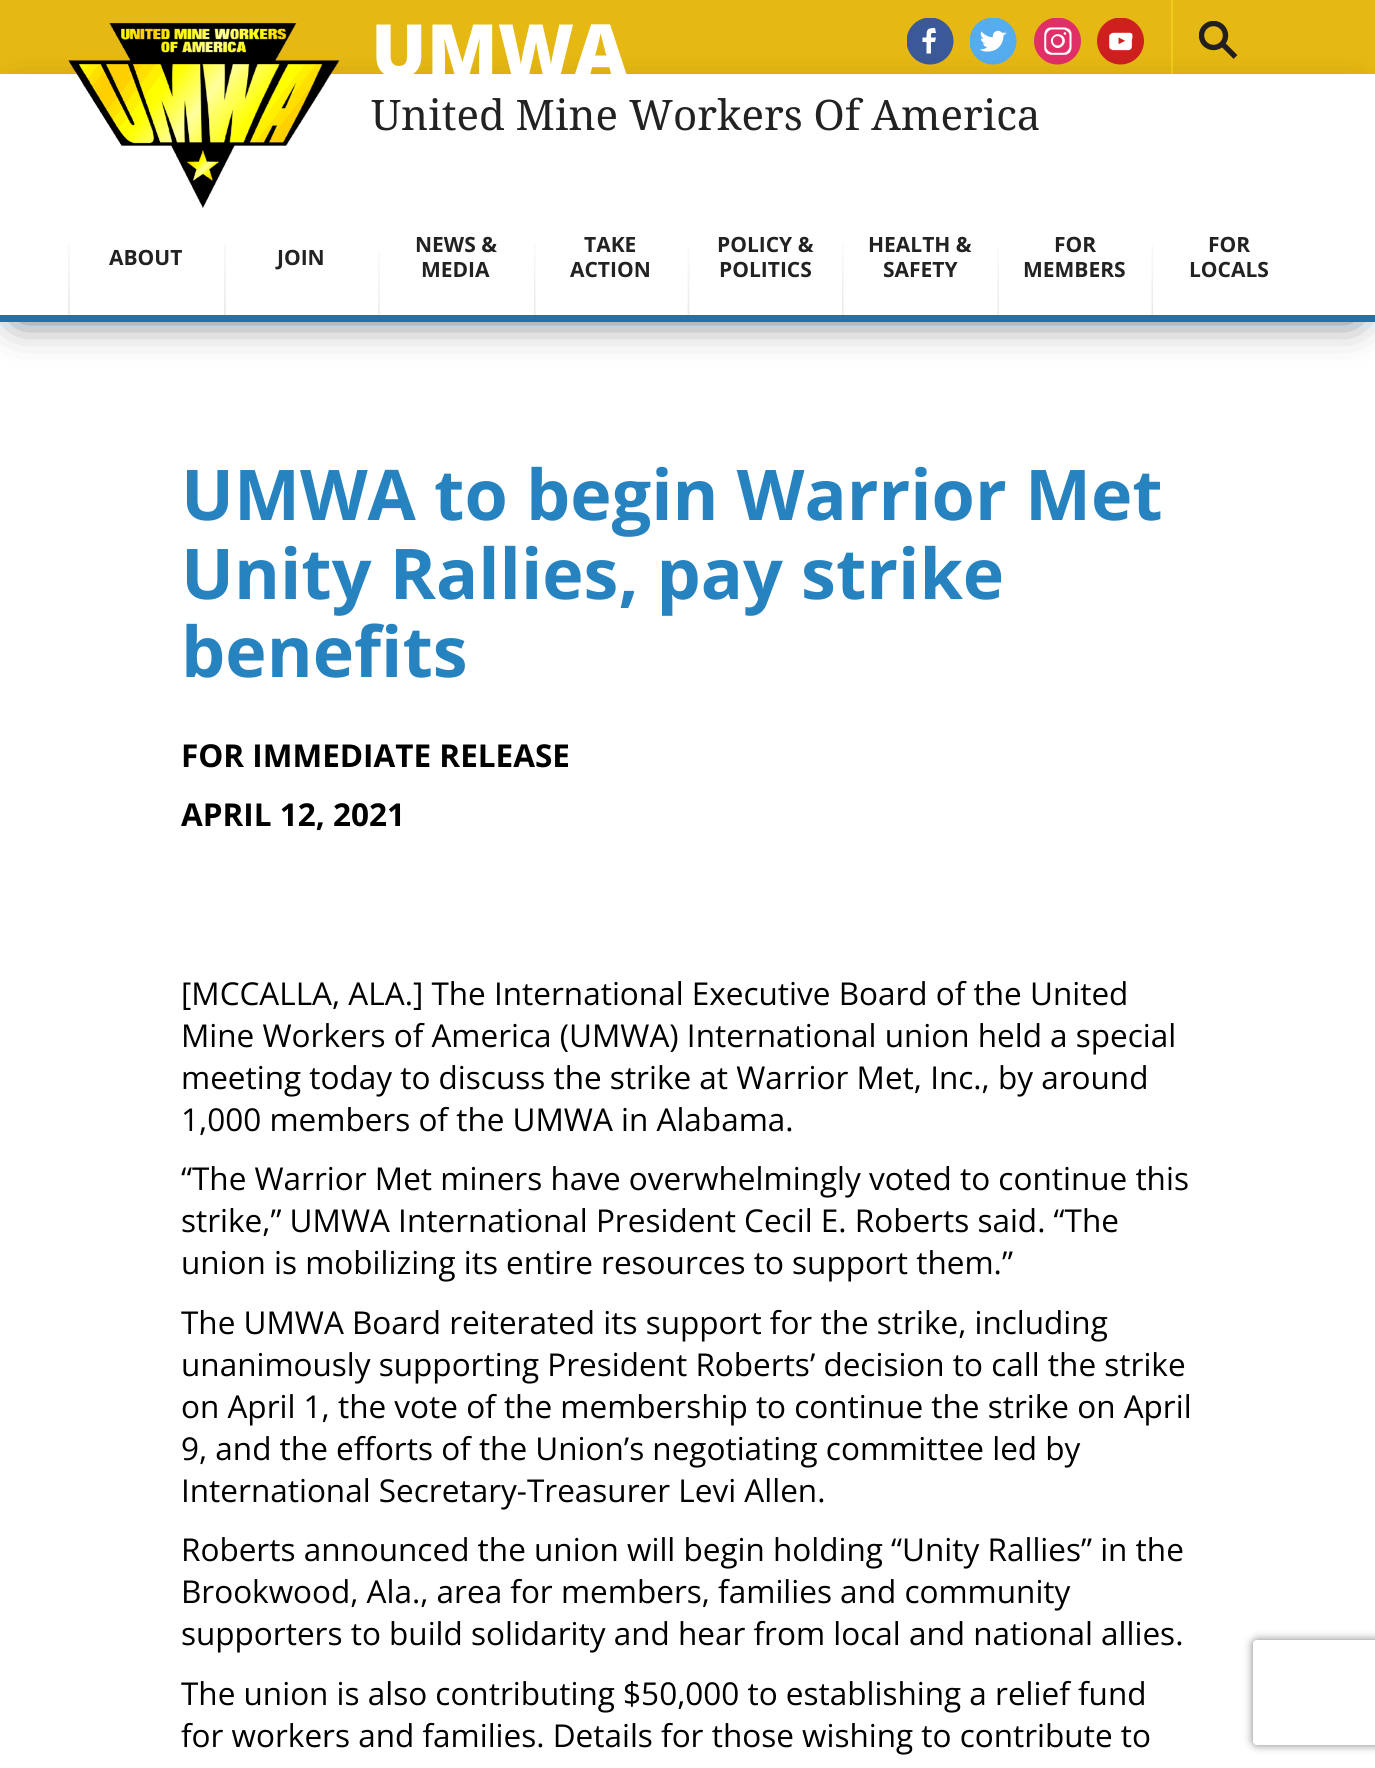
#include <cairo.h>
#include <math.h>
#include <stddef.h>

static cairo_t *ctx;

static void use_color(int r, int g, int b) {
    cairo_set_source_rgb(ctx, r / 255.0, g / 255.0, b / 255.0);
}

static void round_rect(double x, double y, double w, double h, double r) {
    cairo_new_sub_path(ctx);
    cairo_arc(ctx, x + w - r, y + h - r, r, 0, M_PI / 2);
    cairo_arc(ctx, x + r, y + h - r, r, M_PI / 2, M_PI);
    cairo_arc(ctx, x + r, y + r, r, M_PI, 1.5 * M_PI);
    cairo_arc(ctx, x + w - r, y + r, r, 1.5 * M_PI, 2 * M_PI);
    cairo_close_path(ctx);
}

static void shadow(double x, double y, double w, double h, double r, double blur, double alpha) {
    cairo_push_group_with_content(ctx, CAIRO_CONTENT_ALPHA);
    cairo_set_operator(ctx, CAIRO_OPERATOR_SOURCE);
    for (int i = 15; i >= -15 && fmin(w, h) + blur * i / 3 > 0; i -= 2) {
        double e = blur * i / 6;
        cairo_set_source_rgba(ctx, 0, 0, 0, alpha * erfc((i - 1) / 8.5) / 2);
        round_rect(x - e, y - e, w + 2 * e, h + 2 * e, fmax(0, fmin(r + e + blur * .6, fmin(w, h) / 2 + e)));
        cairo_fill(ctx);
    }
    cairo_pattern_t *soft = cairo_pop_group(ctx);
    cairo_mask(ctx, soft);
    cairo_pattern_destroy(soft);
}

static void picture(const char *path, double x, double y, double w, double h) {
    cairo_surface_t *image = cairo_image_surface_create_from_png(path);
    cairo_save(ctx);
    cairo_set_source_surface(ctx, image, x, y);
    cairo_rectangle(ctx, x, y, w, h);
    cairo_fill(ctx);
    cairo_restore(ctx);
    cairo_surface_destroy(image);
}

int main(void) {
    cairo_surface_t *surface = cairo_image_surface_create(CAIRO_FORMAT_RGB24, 1375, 1768);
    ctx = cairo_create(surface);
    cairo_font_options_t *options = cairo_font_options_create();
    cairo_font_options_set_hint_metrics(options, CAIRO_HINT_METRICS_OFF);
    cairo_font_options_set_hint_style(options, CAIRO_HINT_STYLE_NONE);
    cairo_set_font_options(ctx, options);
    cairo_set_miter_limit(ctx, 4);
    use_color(230, 184, 19);
    cairo_paint(ctx);
    use_color(238, 205, 25);
    cairo_rectangle(ctx, 1171, 0, 2, 74);
    cairo_fill(ctx);
    cairo_save(ctx);
    cairo_rectangle(ctx, 907, 18, 47, 47);
    cairo_clip(ctx);
    use_color(59, 89, 152);
    cairo_arc(ctx, 930, 41, 23.5, 0, 2 * M_PI);
    cairo_fill(ctx);
    cairo_restore(ctx);
    use_color(255, 255, 255);
    cairo_new_path(ctx);
    cairo_move_to(ctx, 936, 33);
    cairo_curve_to(ctx, 930.5, 33, 931, 32.5, 931, 37.5);
    cairo_line_to(ctx, 936, 37.5);
    cairo_line_to(ctx, 935, 42);
    cairo_line_to(ctx, 931, 42);
    cairo_line_to(ctx, 931, 53.5);
    cairo_line_to(ctx, 926.5, 53.5);
    cairo_line_to(ctx, 926.5, 42);
    cairo_line_to(ctx, 922.5, 42);
    cairo_line_to(ctx, 922.5, 37.5);
    cairo_line_to(ctx, 926.5, 37.5);
    cairo_curve_to(ctx, 926.5, 29.5, 927, 28, 935, 28);
    cairo_close_path(ctx);
    cairo_fill(ctx);
    picture("img1.png", 970, 18, 47, 47);
    picture("img2.png", 1034, 18, 47, 47);
    picture("img3.png", 1097, 18, 47, 47);
    cairo_save(ctx);
    cairo_rectangle(ctx, 1199, 21, 38, 47);
    cairo_clip(ctx);
    cairo_arc(ctx, 1213.5, 35.5, 12, 0, 2 * M_PI);
    use_color(35, 31, 32);
    cairo_set_line_width(ctx, 5.4);
    cairo_stroke(ctx);
    cairo_restore(ctx);
    cairo_new_path(ctx);
    cairo_move_to(ctx, 1223.5, 45);
    cairo_line_to(ctx, 1235.5, 57);
    use_color(35, 31, 32);
    cairo_set_line_width(ctx, 5.4);
    cairo_stroke(ctx);
    use_color(255, 255, 255);
    cairo_rectangle(ctx, 0, 322, 1375, 1446);
    cairo_fill(ctx);
    use_color(0, 0, 0);
    shadow(18, 105, 1337, 210, 0, 21, 0.75);
    use_color(255, 255, 255);
    cairo_rectangle(ctx, 0, 74, 1375, 241);
    cairo_fill(ctx);
    use_color(33, 113, 174);
    cairo_rectangle(ctx, 0, 315, 1375, 7);
    cairo_fill(ctx);
    picture("img4.png", 68, 23, 272, 185);
    cairo_select_font_face(ctx, "Open Sans ExtraBold", CAIRO_FONT_SLANT_NORMAL, CAIRO_FONT_WEIGHT_NORMAL);
    cairo_set_font_size(ctx, 73.5);
    use_color(255, 255, 255);
    cairo_move_to(ctx, 371, 77);
    cairo_show_text(ctx, "UMWA");
    cairo_select_font_face(ctx, "Noto Serif", CAIRO_FONT_SLANT_NORMAL, CAIRO_FONT_WEIGHT_NORMAL);
    cairo_set_font_size(ctx, 42);
    use_color(34, 34, 34);
    cairo_move_to(ctx, 371, 130);
    cairo_show_text(ctx, "United Mine Workers Of America");
    picture("img5.png", 68, 244, 2, 71);
    cairo_select_font_face(ctx, "Open Sans", CAIRO_FONT_SLANT_NORMAL, CAIRO_FONT_WEIGHT_BOLD);
    cairo_set_font_size(ctx, 21);
    cairo_move_to(ctx, 109, 265);
    cairo_show_text(ctx, "ABOUT");
    picture("img6.png", 224, 244, 2, 71);
    cairo_move_to(ctx, 277, 265);
    cairo_show_text(ctx, "JOIN");
    picture("img7.png", 378, 253, 2, 62);
    cairo_move_to(ctx, 415, 252);
    cairo_show_text(ctx, "NEWS &");
    cairo_move_to(ctx, 421, 277);
    cairo_show_text(ctx, "MEDIA");
    picture("img8.png", 534, 244, 2, 71);
    cairo_move_to(ctx, 584, 252);
    cairo_show_text(ctx, "TAKE");
    cairo_move_to(ctx, 570, 277);
    cairo_show_text(ctx, "ACTION");
    picture("img9.png", 687, 248, 3, 67);
    cairo_move_to(ctx, 717, 252);
    cairo_show_text(ctx, "POLICY &");
    cairo_move_to(ctx, 719, 277);
    cairo_show_text(ctx, "POLITICS");
    picture("img8.png", 842, 244, 2, 71);
    cairo_move_to(ctx, 868, 252);
    cairo_show_text(ctx, "HEALTH &");
    cairo_move_to(ctx, 883, 277);
    cairo_show_text(ctx, "SAFETY");
    picture("img10.png", 997, 248, 2, 67);
    cairo_move_to(ctx, 1054, 252);
    cairo_show_text(ctx, "FOR");
    cairo_move_to(ctx, 1023, 277);
    cairo_show_text(ctx, "MEMBERS");
    picture("img11.png", 1151, 244, 2, 71);
    cairo_move_to(ctx, 1208, 252);
    cairo_show_text(ctx, "FOR");
    cairo_move_to(ctx, 1189, 277);
    cairo_show_text(ctx, "LOCALS");
    cairo_set_font_size(ctx, 70);
    use_color(38, 131, 192);
    cairo_move_to(ctx, 181, 520);
    cairo_show_text(ctx, "UMWA to begin Warrior Met");
    cairo_move_to(ctx, 181, 599);
    cairo_show_text(ctx, "Unity Rallies, pay strike");
    cairo_move_to(ctx, 181, 677);
    cairo_show_text(ctx, "benefits");
    cairo_set_font_size(ctx, 31.5);
    use_color(0, 0, 0);
    cairo_move_to(ctx, 181, 767);
    cairo_show_text(ctx, "FOR IMMEDIATE RELEASE");
    cairo_move_to(ctx, 181, 826);
    cairo_show_text(ctx, "APRIL 12, 2021");
    cairo_select_font_face(ctx, "Open Sans", CAIRO_FONT_SLANT_NORMAL, CAIRO_FONT_WEIGHT_NORMAL);
    cairo_move_to(ctx, 181, 1005);
    cairo_show_text(ctx, "[MCCALLA, ALA.] The International Executive Board of the United");
    cairo_move_to(ctx, 181, 1047);
    cairo_show_text(ctx, "Mine Workers of America (UMWA) International union held a special");
    cairo_move_to(ctx, 181, 1089);
    cairo_show_text(ctx, "meeting today to discuss the strike at Warrior Met, Inc., by around");
    cairo_move_to(ctx, 181, 1131);
    cairo_show_text(ctx, "1,000 members of the UMWA in Alabama.");
    cairo_move_to(ctx, 181, 1190);
    cairo_show_text(ctx, "“The Warrior Met miners have overwhelmingly voted to continue this");
    cairo_move_to(ctx, 181, 1232);
    cairo_show_text(ctx, "strike,” UMWA International President Cecil E. Roberts said. “The");
    cairo_move_to(ctx, 181, 1274);
    cairo_show_text(ctx, "union is mobilizing its entire resources to support them.”");
    cairo_move_to(ctx, 181, 1334);
    cairo_show_text(ctx, "The UMWA Board reiterated its support for the strike, including");
    cairo_move_to(ctx, 181, 1376);
    cairo_show_text(ctx, "unanimously supporting President Roberts’ decision to call the strike");
    cairo_move_to(ctx, 181, 1418);
    cairo_show_text(ctx, "on April 1, the vote of the membership to continue the strike on April");
    cairo_move_to(ctx, 181, 1460);
    cairo_show_text(ctx, "9, and the efforts of the Union’s negotiating committee led by");
    cairo_move_to(ctx, 181, 1502);
    cairo_show_text(ctx, "International Secretary-Treasurer Levi Allen.");
    cairo_move_to(ctx, 181, 1561);
    cairo_show_text(ctx, "Roberts announced the union will begin holding “Unity Rallies” in the");
    cairo_move_to(ctx, 181, 1603);
    cairo_show_text(ctx, "Brookwood, Ala., area for members, families and community");
    cairo_move_to(ctx, 181, 1645);
    cairo_show_text(ctx, "supporters to build solidarity and hear from local and national allies.");
    cairo_move_to(ctx, 181, 1705);
    cairo_show_text(ctx, "The union is also contributing $50,000 to establishing a relief fund");
    cairo_move_to(ctx, 181, 1747);
    cairo_show_text(ctx, "for workers and families. Details for those wishing to contribute to");
    cairo_save(ctx);
    cairo_set_fill_rule(ctx, CAIRO_FILL_RULE_EVEN_ODD);
    cairo_new_path(ctx);
    cairo_move_to(ctx, 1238, 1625);
    cairo_line_to(ctx, 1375, 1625);
    cairo_line_to(ctx, 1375, 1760);
    cairo_line_to(ctx, 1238, 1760);
    cairo_close_path(ctx);
    cairo_move_to(ctx, 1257, 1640);
    cairo_line_to(ctx, 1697, 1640);
    cairo_curve_to(ctx, 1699, 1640, 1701, 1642, 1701, 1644);
    cairo_line_to(ctx, 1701, 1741);
    cairo_curve_to(ctx, 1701, 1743, 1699, 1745, 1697, 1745);
    cairo_line_to(ctx, 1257, 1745);
    cairo_curve_to(ctx, 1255, 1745, 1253, 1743, 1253, 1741);
    cairo_line_to(ctx, 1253, 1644);
    cairo_curve_to(ctx, 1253, 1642, 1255, 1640, 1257, 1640);
    cairo_close_path(ctx);
    cairo_clip(ctx);
    use_color(128, 128, 128);
    shadow(1253, 1640, 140, 105, 4, 4.5, 1);
    cairo_restore(ctx);
    cairo_surface_write_to_png(surface, "result.png");
    cairo_font_options_destroy(options);
    cairo_destroy(ctx);
    cairo_surface_destroy(surface);
    return 0;
}
